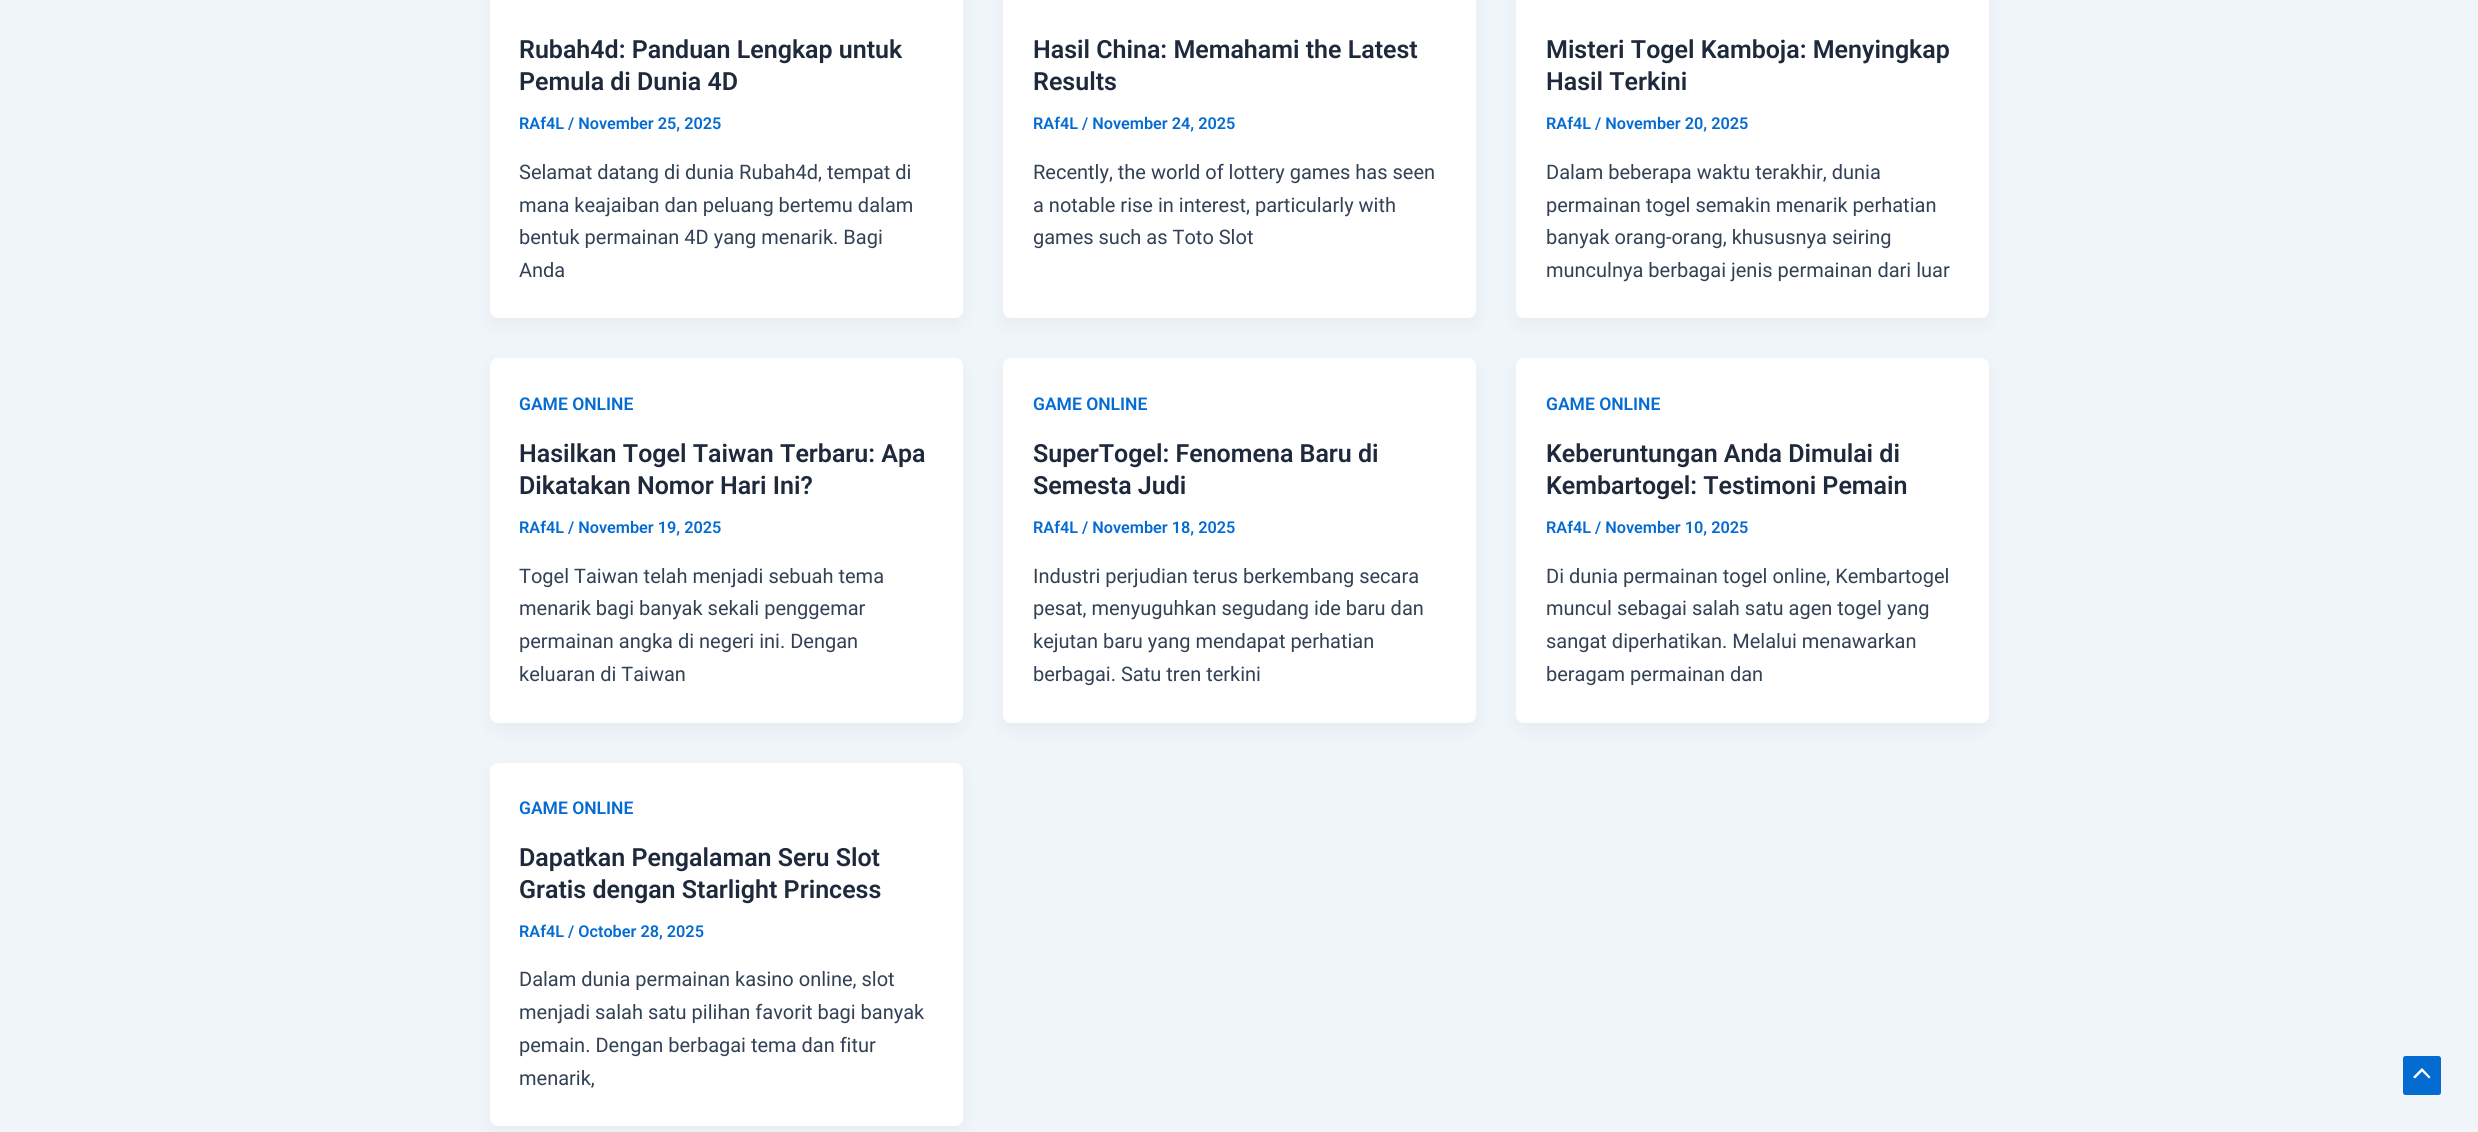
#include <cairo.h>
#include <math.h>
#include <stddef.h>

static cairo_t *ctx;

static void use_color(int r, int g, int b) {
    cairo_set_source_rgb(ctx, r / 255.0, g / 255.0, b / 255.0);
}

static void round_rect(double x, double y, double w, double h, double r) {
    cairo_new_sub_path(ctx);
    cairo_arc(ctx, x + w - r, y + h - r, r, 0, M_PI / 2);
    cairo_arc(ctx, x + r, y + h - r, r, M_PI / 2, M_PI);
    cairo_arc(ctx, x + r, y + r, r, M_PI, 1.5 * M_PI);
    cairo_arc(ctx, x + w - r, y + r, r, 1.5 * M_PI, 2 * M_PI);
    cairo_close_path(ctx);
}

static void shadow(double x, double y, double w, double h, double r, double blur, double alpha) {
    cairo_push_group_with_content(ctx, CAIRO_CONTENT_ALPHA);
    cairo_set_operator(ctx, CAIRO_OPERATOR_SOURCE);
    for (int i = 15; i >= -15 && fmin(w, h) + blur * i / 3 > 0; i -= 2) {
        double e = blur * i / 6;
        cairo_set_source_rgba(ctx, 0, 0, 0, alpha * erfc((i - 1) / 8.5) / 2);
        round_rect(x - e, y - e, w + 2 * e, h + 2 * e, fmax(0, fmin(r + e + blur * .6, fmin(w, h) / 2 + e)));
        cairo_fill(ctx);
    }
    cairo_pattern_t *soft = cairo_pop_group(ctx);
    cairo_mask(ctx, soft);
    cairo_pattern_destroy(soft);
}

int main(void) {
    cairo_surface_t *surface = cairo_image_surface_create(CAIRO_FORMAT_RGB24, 2478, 1132);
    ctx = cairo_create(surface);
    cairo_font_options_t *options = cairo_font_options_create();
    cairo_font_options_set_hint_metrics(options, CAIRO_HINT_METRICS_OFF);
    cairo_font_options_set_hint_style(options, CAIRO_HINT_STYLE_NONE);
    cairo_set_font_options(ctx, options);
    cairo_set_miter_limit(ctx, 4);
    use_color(240, 245, 250);
    cairo_paint(ctx);
    use_color(16, 24, 40);
    shadow(493, -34, 467, 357, 5, 9.5, 0.05);
    use_color(255, 255, 255);
    round_rect(490, -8, 473, 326, 8);
    cairo_fill(ctx);
    cairo_select_font_face(ctx, "Roboto SemiBold", CAIRO_FONT_SLANT_NORMAL, CAIRO_FONT_WEIGHT_NORMAL);
    cairo_set_font_size(ctx, 25);
    use_color(30, 41, 59);
    cairo_move_to(ctx, 519, 58);
    cairo_show_text(ctx, "Rubah4d: Panduan Lengkap untuk");
    cairo_move_to(ctx, 519, 90);
    cairo_show_text(ctx, "Pemula di Dunia 4D");
    cairo_set_font_size(ctx, 16.25);
    use_color(4, 107, 210);
    cairo_move_to(ctx, 519, 129);
    cairo_show_text(ctx, "RAf4L / November 25, 2025");
    cairo_select_font_face(ctx, "Roboto", CAIRO_FONT_SLANT_NORMAL, CAIRO_FONT_WEIGHT_NORMAL);
    cairo_set_font_size(ctx, 20);
    use_color(51, 65, 85);
    cairo_move_to(ctx, 519, 179);
    cairo_show_text(ctx, "Selamat datang di dunia Rubah4d, tempat di");
    cairo_move_to(ctx, 519, 212);
    cairo_show_text(ctx, "mana keajaiban dan peluang bertemu dalam");
    cairo_move_to(ctx, 519, 244);
    cairo_show_text(ctx, "bentuk permainan 4D yang menarik. Bagi");
    cairo_move_to(ctx, 519, 277);
    cairo_show_text(ctx, "Anda");
    use_color(16, 24, 40);
    shadow(1005, -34, 469, 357, 5, 9.5, 0.05);
    use_color(255, 255, 255);
    round_rect(1003, -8, 473, 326, 8);
    cairo_fill(ctx);
    cairo_select_font_face(ctx, "Roboto SemiBold", CAIRO_FONT_SLANT_NORMAL, CAIRO_FONT_WEIGHT_NORMAL);
    cairo_set_font_size(ctx, 25);
    use_color(30, 41, 59);
    cairo_move_to(ctx, 1033, 58);
    cairo_show_text(ctx, "Hasil China: Memahami the Latest");
    cairo_move_to(ctx, 1033, 90);
    cairo_show_text(ctx, "Results");
    cairo_set_font_size(ctx, 16.25);
    use_color(4, 107, 210);
    cairo_move_to(ctx, 1033, 129);
    cairo_show_text(ctx, "RAf4L / November 24, 2025");
    cairo_select_font_face(ctx, "Roboto", CAIRO_FONT_SLANT_NORMAL, CAIRO_FONT_WEIGHT_NORMAL);
    cairo_set_font_size(ctx, 20);
    use_color(51, 65, 85);
    cairo_move_to(ctx, 1033, 179);
    cairo_show_text(ctx, "Recently, the world of lottery games has seen");
    cairo_move_to(ctx, 1033, 212);
    cairo_show_text(ctx, "a notable rise in interest, particularly with");
    cairo_move_to(ctx, 1033, 244);
    cairo_show_text(ctx, "games such as Toto Slot");
    use_color(16, 24, 40);
    shadow(1519, -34, 467, 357, 5, 9.5, 0.05);
    use_color(255, 255, 255);
    round_rect(1516, -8, 473, 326, 8);
    cairo_fill(ctx);
    cairo_select_font_face(ctx, "Roboto SemiBold", CAIRO_FONT_SLANT_NORMAL, CAIRO_FONT_WEIGHT_NORMAL);
    cairo_set_font_size(ctx, 25);
    use_color(30, 41, 59);
    cairo_move_to(ctx, 1546, 58);
    cairo_show_text(ctx, "Misteri Togel Kamboja: Menyingkap");
    cairo_move_to(ctx, 1546, 90);
    cairo_show_text(ctx, "Hasil Terkini");
    cairo_set_font_size(ctx, 16.25);
    use_color(4, 107, 210);
    cairo_move_to(ctx, 1546, 129);
    cairo_show_text(ctx, "RAf4L / November 20, 2025");
    cairo_select_font_face(ctx, "Roboto", CAIRO_FONT_SLANT_NORMAL, CAIRO_FONT_WEIGHT_NORMAL);
    cairo_set_font_size(ctx, 20);
    use_color(51, 65, 85);
    cairo_move_to(ctx, 1546, 179);
    cairo_show_text(ctx, "Dalam beberapa waktu terakhir, dunia");
    cairo_move_to(ctx, 1546, 212);
    cairo_show_text(ctx, "permainan togel semakin menarik perhatian");
    cairo_move_to(ctx, 1546, 244);
    cairo_show_text(ctx, "banyak orang-orang, khususnya seiring");
    cairo_move_to(ctx, 1546, 277);
    cairo_show_text(ctx, "munculnya berbagai jenis permainan dari luar");
    use_color(16, 24, 40);
    shadow(493, 368, 467, 360, 5, 9.5, 0.05);
    use_color(255, 255, 255);
    round_rect(490, 358, 473, 365, 8);
    cairo_fill(ctx);
    cairo_select_font_face(ctx, "Roboto SemiBold", CAIRO_FONT_SLANT_NORMAL, CAIRO_FONT_WEIGHT_NORMAL);
    cairo_set_font_size(ctx, 17.5);
    use_color(4, 107, 210);
    cairo_move_to(ctx, 519, 410);
    cairo_show_text(ctx, "GAME ONLINE");
    cairo_set_font_size(ctx, 25);
    use_color(30, 41, 59);
    cairo_move_to(ctx, 519, 462);
    cairo_show_text(ctx, "Hasilkan Togel Taiwan Terbaru: Apa");
    cairo_move_to(ctx, 519, 494);
    cairo_show_text(ctx, "Dikatakan Nomor Hari Ini?");
    cairo_set_font_size(ctx, 16.25);
    use_color(4, 107, 210);
    cairo_move_to(ctx, 519, 533);
    cairo_show_text(ctx, "RAf4L / November 19, 2025");
    cairo_select_font_face(ctx, "Roboto", CAIRO_FONT_SLANT_NORMAL, CAIRO_FONT_WEIGHT_NORMAL);
    cairo_set_font_size(ctx, 20);
    use_color(51, 65, 85);
    cairo_move_to(ctx, 519, 583);
    cairo_show_text(ctx, "Togel Taiwan telah menjadi sebuah tema");
    cairo_move_to(ctx, 519, 615);
    cairo_show_text(ctx, "menarik bagi banyak sekali penggemar");
    cairo_move_to(ctx, 519, 648);
    cairo_show_text(ctx, "permainan angka di negeri ini. Dengan");
    cairo_move_to(ctx, 519, 681);
    cairo_show_text(ctx, "keluaran di Taiwan");
    use_color(16, 24, 40);
    shadow(1005, 368, 469, 360, 5, 9.5, 0.05);
    use_color(255, 255, 255);
    round_rect(1003, 358, 473, 365, 8);
    cairo_fill(ctx);
    cairo_select_font_face(ctx, "Roboto SemiBold", CAIRO_FONT_SLANT_NORMAL, CAIRO_FONT_WEIGHT_NORMAL);
    cairo_set_font_size(ctx, 17.5);
    use_color(4, 107, 210);
    cairo_move_to(ctx, 1033, 410);
    cairo_show_text(ctx, "GAME ONLINE");
    cairo_set_font_size(ctx, 25);
    use_color(30, 41, 59);
    cairo_move_to(ctx, 1033, 462);
    cairo_show_text(ctx, "SuperTogel: Fenomena Baru di");
    cairo_move_to(ctx, 1033, 494);
    cairo_show_text(ctx, "Semesta Judi");
    cairo_set_font_size(ctx, 16.25);
    use_color(4, 107, 210);
    cairo_move_to(ctx, 1033, 533);
    cairo_show_text(ctx, "RAf4L / November 18, 2025");
    cairo_select_font_face(ctx, "Roboto", CAIRO_FONT_SLANT_NORMAL, CAIRO_FONT_WEIGHT_NORMAL);
    cairo_set_font_size(ctx, 20);
    use_color(51, 65, 85);
    cairo_move_to(ctx, 1033, 583);
    cairo_show_text(ctx, "Industri perjudian terus berkembang secara");
    cairo_move_to(ctx, 1033, 615);
    cairo_show_text(ctx, "pesat, menyuguhkan segudang ide baru dan");
    cairo_move_to(ctx, 1033, 648);
    cairo_show_text(ctx, "kejutan baru yang mendapat perhatian");
    cairo_move_to(ctx, 1033, 681);
    cairo_show_text(ctx, "berbagai. Satu tren terkini");
    use_color(16, 24, 40);
    shadow(1519, 368, 467, 360, 5, 9.5, 0.05);
    use_color(255, 255, 255);
    round_rect(1516, 358, 473, 365, 8);
    cairo_fill(ctx);
    cairo_select_font_face(ctx, "Roboto SemiBold", CAIRO_FONT_SLANT_NORMAL, CAIRO_FONT_WEIGHT_NORMAL);
    cairo_set_font_size(ctx, 17.5);
    use_color(4, 107, 210);
    cairo_move_to(ctx, 1546, 410);
    cairo_show_text(ctx, "GAME ONLINE");
    cairo_set_font_size(ctx, 25);
    use_color(30, 41, 59);
    cairo_move_to(ctx, 1546, 462);
    cairo_show_text(ctx, "Keberuntungan Anda Dimulai di");
    cairo_move_to(ctx, 1546, 494);
    cairo_show_text(ctx, "Kembartogel: Testimoni Pemain");
    cairo_set_font_size(ctx, 16.25);
    use_color(4, 107, 210);
    cairo_move_to(ctx, 1546, 533);
    cairo_show_text(ctx, "RAf4L / November 10, 2025");
    cairo_select_font_face(ctx, "Roboto", CAIRO_FONT_SLANT_NORMAL, CAIRO_FONT_WEIGHT_NORMAL);
    cairo_set_font_size(ctx, 20);
    use_color(51, 65, 85);
    cairo_move_to(ctx, 1546, 583);
    cairo_show_text(ctx, "Di dunia permainan togel online, Kembartogel");
    cairo_move_to(ctx, 1546, 615);
    cairo_show_text(ctx, "muncul sebagai salah satu agen togel yang");
    cairo_move_to(ctx, 1546, 648);
    cairo_show_text(ctx, "sangat diperhatikan. Melalui menawarkan");
    cairo_move_to(ctx, 1546, 681);
    cairo_show_text(ctx, "beragam permainan dan");
    use_color(16, 24, 40);
    shadow(493, 773, 467, 358, 5, 9.5, 0.05);
    use_color(255, 255, 255);
    round_rect(490, 763, 473, 363, 8);
    cairo_fill(ctx);
    cairo_select_font_face(ctx, "Roboto SemiBold", CAIRO_FONT_SLANT_NORMAL, CAIRO_FONT_WEIGHT_NORMAL);
    cairo_set_font_size(ctx, 17.5);
    use_color(4, 107, 210);
    cairo_move_to(ctx, 519, 814);
    cairo_show_text(ctx, "GAME ONLINE");
    cairo_set_font_size(ctx, 25);
    use_color(30, 41, 59);
    cairo_move_to(ctx, 519, 866);
    cairo_show_text(ctx, "Dapatkan Pengalaman Seru Slot");
    cairo_move_to(ctx, 519, 898);
    cairo_show_text(ctx, "Gratis dengan Starlight Princess");
    cairo_set_font_size(ctx, 16.25);
    use_color(4, 107, 210);
    cairo_move_to(ctx, 519, 937);
    cairo_show_text(ctx, "RAf4L / October 28, 2025");
    cairo_select_font_face(ctx, "Roboto", CAIRO_FONT_SLANT_NORMAL, CAIRO_FONT_WEIGHT_NORMAL);
    cairo_set_font_size(ctx, 20);
    use_color(51, 65, 85);
    cairo_move_to(ctx, 519, 986);
    cairo_show_text(ctx, "Dalam dunia permainan kasino online, slot");
    cairo_move_to(ctx, 519, 1019);
    cairo_show_text(ctx, "menjadi salah satu pilihan favorit bagi banyak");
    cairo_move_to(ctx, 519, 1052);
    cairo_show_text(ctx, "pemain. Dengan berbagai tema dan fitur");
    cairo_move_to(ctx, 519, 1085);
    cairo_show_text(ctx, "menarik,");
    use_color(4, 107, 210);
    round_rect(2403, 1056, 38, 39, 2.5);
    cairo_fill(ctx);
    use_color(255, 255, 255);
    cairo_new_path(ctx);
    cairo_move_to(ctx, 2430.5, 1077);
    cairo_line_to(ctx, 2422, 1068);
    cairo_line_to(ctx, 2413, 1077);
    cairo_line_to(ctx, 2415, 1078.5);
    cairo_line_to(ctx, 2422, 1071.5);
    cairo_line_to(ctx, 2429, 1078.5);
    cairo_close_path(ctx);
    cairo_fill(ctx);
    cairo_surface_write_to_png(surface, "result.png");
    cairo_font_options_destroy(options);
    cairo_destroy(ctx);
    cairo_surface_destroy(surface);
    return 0;
}
